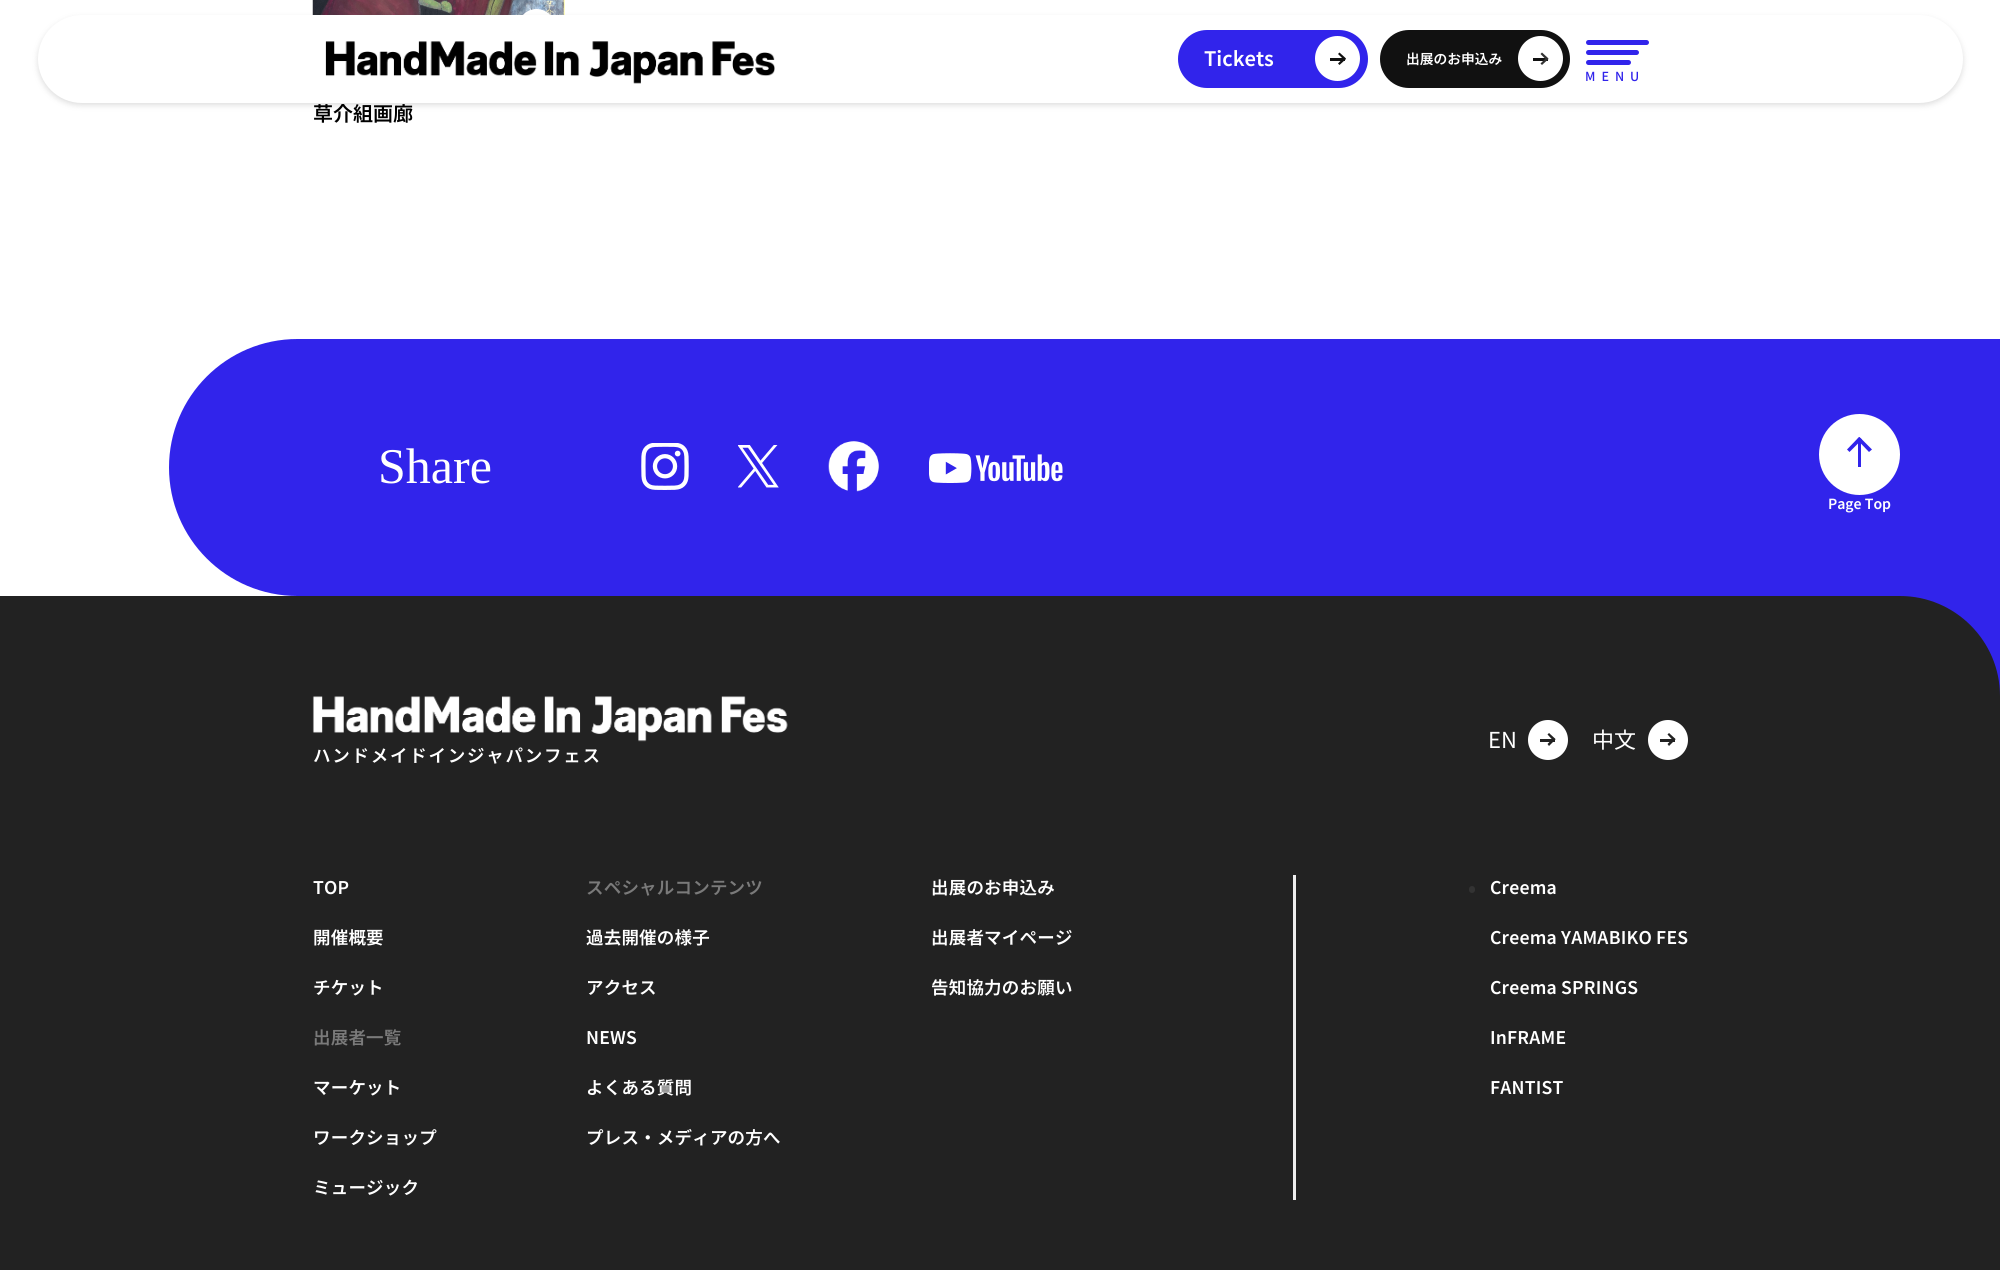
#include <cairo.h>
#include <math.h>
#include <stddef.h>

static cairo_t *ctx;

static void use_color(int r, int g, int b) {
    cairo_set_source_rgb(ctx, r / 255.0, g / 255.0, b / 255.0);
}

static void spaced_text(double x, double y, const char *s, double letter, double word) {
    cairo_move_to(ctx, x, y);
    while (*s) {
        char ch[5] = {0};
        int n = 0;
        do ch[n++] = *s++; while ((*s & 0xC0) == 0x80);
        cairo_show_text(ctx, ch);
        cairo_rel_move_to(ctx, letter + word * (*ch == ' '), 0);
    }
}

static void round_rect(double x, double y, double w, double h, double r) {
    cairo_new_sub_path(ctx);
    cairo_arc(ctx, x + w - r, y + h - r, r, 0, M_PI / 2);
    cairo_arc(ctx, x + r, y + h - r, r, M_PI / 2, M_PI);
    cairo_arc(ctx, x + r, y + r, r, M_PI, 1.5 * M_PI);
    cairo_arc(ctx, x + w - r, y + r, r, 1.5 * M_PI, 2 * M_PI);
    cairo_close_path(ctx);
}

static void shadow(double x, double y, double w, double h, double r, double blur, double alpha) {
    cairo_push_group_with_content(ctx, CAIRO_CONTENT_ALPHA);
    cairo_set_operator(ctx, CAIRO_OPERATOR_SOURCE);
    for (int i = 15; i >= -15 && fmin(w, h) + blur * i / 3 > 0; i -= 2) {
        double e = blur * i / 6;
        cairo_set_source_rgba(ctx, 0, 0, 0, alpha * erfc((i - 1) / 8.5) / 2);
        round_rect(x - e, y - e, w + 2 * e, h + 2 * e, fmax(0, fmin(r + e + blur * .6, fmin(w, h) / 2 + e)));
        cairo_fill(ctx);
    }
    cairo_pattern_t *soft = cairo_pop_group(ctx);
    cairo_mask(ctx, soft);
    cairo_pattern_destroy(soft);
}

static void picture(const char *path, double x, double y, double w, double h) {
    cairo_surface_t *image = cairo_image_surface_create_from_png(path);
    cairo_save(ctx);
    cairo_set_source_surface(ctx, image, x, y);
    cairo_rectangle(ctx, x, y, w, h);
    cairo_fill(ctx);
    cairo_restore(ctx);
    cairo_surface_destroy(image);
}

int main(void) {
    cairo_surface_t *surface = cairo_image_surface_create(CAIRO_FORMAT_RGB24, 2000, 1270);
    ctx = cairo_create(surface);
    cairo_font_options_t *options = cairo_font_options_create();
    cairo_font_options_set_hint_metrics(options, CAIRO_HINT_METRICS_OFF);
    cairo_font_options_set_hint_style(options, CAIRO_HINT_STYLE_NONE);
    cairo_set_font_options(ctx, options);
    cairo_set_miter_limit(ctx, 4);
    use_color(255, 255, 255);
    cairo_paint(ctx);
    picture("img2.png", 312, 0, 253, 15);
    use_color(255, 255, 255);
    cairo_arc(ctx, 536.5, 27.5, 18.5, 0, 2 * M_PI);
    cairo_fill(ctx);
    use_color(81, 81, 81);
    shadow(38, 18, 1925, 87, 43.5, 3, 0.2);
    use_color(255, 255, 255);
    round_rect(38, 15, 1925, 88, 44);
    cairo_fill(ctx);
    picture("img1.png", 325, 41, 450, 43);
    use_color(49, 36, 235);
    round_rect(1178, 30, 190, 58, 29);
    cairo_fill(ctx);
    use_color(255, 255, 255);
    cairo_arc(ctx, 1337.5, 58.5, 22.5, 0, 2 * M_PI);
    cairo_fill(ctx);
    cairo_select_font_face(ctx, "Noto Sans JP Thin", CAIRO_FONT_SLANT_NORMAL, CAIRO_FONT_WEIGHT_NORMAL);
    cairo_set_font_size(ctx, 20);
    cairo_move_to(ctx, 1204, 66);
    cairo_show_text(ctx, "Tickets");
    use_color(17, 17, 17);
    cairo_rectangle(ctx, 1330, 58, 15, 3);
    cairo_fill(ctx);
    cairo_new_path(ctx);
    cairo_move_to(ctx, 1339.5, 52.5);
    cairo_line_to(ctx, 1346, 58.5);
    cairo_line_to(ctx, 1344, 60);
    cairo_line_to(ctx, 1338, 54);
    cairo_close_path(ctx);
    cairo_fill(ctx);
    cairo_new_path(ctx);
    cairo_move_to(ctx, 1338, 63.5);
    cairo_line_to(ctx, 1344, 57.5);
    cairo_line_to(ctx, 1346, 59);
    cairo_line_to(ctx, 1339.5, 65);
    cairo_close_path(ctx);
    cairo_fill(ctx);
    round_rect(1380, 30, 190, 58, 29);
    cairo_fill(ctx);
    use_color(255, 255, 255);
    cairo_arc(ctx, 1540.5, 58.5, 22.5, 0, 2 * M_PI);
    cairo_fill(ctx);
    cairo_set_font_size(ctx, 13.75);
    cairo_move_to(ctx, 1406, 64);
    cairo_show_text(ctx, "出展のお申込み");
    use_color(17, 17, 17);
    cairo_rectangle(ctx, 1533, 58, 15, 3);
    cairo_fill(ctx);
    use_color(51, 51, 51);
    cairo_new_path(ctx);
    cairo_move_to(ctx, 1542, 52.5);
    cairo_line_to(ctx, 1548.5, 58.5);
    cairo_line_to(ctx, 1546.5, 60);
    cairo_line_to(ctx, 1540.5, 54);
    cairo_close_path(ctx);
    cairo_fill(ctx);
    cairo_new_path(ctx);
    cairo_move_to(ctx, 1540.5, 63.5);
    cairo_line_to(ctx, 1546.5, 57.5);
    cairo_line_to(ctx, 1548.5, 59);
    cairo_line_to(ctx, 1542, 65);
    cairo_close_path(ctx);
    cairo_fill(ctx);
    use_color(49, 36, 235);
    round_rect(1586, 50, 53, 5, 2.5);
    cairo_fill(ctx);
    round_rect(1586, 40, 63, 5, 2.5);
    cairo_fill(ctx);
    round_rect(1586, 60, 45, 5, 2.5);
    cairo_fill(ctx);
    cairo_select_font_face(ctx, "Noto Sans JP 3 Thin", CAIRO_FONT_SLANT_NORMAL, CAIRO_FONT_WEIGHT_NORMAL);
    cairo_set_font_size(ctx, 12.5);
    spaced_text(1585, 81, "MENU", 6, 0);
    cairo_select_font_face(ctx, "Noto Sans JP Thin", CAIRO_FONT_SLANT_NORMAL, CAIRO_FONT_WEIGHT_NORMAL);
    cairo_set_font_size(ctx, 20);
    use_color(0, 0, 0);
    cairo_move_to(ctx, 313, 121);
    cairo_show_text(ctx, "草介組画廊");
    use_color(49, 36, 235);
    cairo_new_path(ctx);
    cairo_move_to(ctx, 297.5, 339);
    cairo_line_to(ctx, 2000, 339);
    cairo_line_to(ctx, 2000, 596);
    cairo_line_to(ctx, 297.5, 596);
    cairo_curve_to(ctx, 226.5, 596, 169, 538.5, 169, 467.5);
    cairo_curve_to(ctx, 169, 396.5, 226.5, 339, 297.5, 339);
    cairo_close_path(ctx);
    cairo_fill(ctx);
    cairo_select_font_face(ctx, "Liberation Serif", CAIRO_FONT_SLANT_NORMAL, CAIRO_FONT_WEIGHT_NORMAL);
    cairo_set_font_size(ctx, 50);
    use_color(255, 255, 255);
    cairo_move_to(ctx, 378, 483);
    cairo_show_text(ctx, "Share");
    picture("img3.png", 641, 443, 48, 47);
    picture("img4.png", 738, 445, 41, 43);
    picture("img5.png", 828, 441, 51, 51);
    picture("img6.png", 929, 453, 134, 30);
    cairo_arc(ctx, 1859.5, 454.5, 40.5, 0, 2 * M_PI);
    cairo_fill(ctx);
    use_color(49, 36, 235);
    cairo_rectangle(ctx, 1858, 441, 3, 26);
    cairo_fill(ctx);
    cairo_new_path(ctx);
    cairo_move_to(ctx, 1847, 449.5);
    cairo_line_to(ctx, 1859, 437);
    cairo_line_to(ctx, 1862, 439.5);
    cairo_line_to(ctx, 1849.5, 452);
    cairo_close_path(ctx);
    cairo_fill(ctx);
    cairo_new_path(ctx);
    cairo_move_to(ctx, 1869, 452);
    cairo_line_to(ctx, 1857, 439.5);
    cairo_line_to(ctx, 1859.5, 437);
    cairo_line_to(ctx, 1872, 449.5);
    cairo_close_path(ctx);
    cairo_fill(ctx);
    cairo_select_font_face(ctx, "Noto Sans JP Thin", CAIRO_FONT_SLANT_NORMAL, CAIRO_FONT_WEIGHT_NORMAL);
    cairo_set_font_size(ctx, 14);
    use_color(255, 255, 255);
    cairo_move_to(ctx, 1828, 509);
    cairo_show_text(ctx, "Page Top");
    use_color(34, 34, 34);
    cairo_rectangle(ctx, 0, 596, 2000, 674);
    cairo_fill(ctx);
    use_color(49, 36, 235);
    cairo_rectangle(ctx, 1901, 596, 99, 100);
    cairo_fill(ctx);
    use_color(34, 34, 34);
    cairo_new_path(ctx);
    cairo_move_to(ctx, 1875, 596);
    cairo_line_to(ctx, 1900, 596);
    cairo_curve_to(ctx, 1955, 596, 2000, 641, 2000, 696);
    cairo_line_to(ctx, 2000, 721);
    cairo_line_to(ctx, 1875, 721);
    cairo_close_path(ctx);
    cairo_fill(ctx);
    cairo_select_font_face(ctx, "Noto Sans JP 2 Thin", CAIRO_FONT_SLANT_NORMAL, CAIRO_FONT_WEIGHT_NORMAL);
    cairo_set_font_size(ctx, 22);
    use_color(255, 255, 255);
    cairo_move_to(ctx, 1488, 748);
    cairo_show_text(ctx, "EN");
    cairo_new_path(ctx);
    cairo_arc(ctx, 1548, 740, 20, 0, 2 * M_PI);
    cairo_fill(ctx);
    use_color(34, 34, 34);
    cairo_rectangle(ctx, 1540, 739, 15, 3);
    cairo_fill(ctx);
    cairo_new_path(ctx);
    cairo_move_to(ctx, 1549, 733);
    cairo_line_to(ctx, 1555.5, 739);
    cairo_line_to(ctx, 1553.5, 741);
    cairo_line_to(ctx, 1547.5, 734.5);
    cairo_close_path(ctx);
    cairo_fill(ctx);
    cairo_new_path(ctx);
    cairo_move_to(ctx, 1547.5, 744);
    cairo_line_to(ctx, 1553.5, 738);
    cairo_line_to(ctx, 1555.5, 739.5);
    cairo_line_to(ctx, 1549, 746);
    cairo_close_path(ctx);
    cairo_fill(ctx);
    use_color(255, 255, 255);
    cairo_move_to(ctx, 1592, 748);
    cairo_show_text(ctx, "中文");
    cairo_new_path(ctx);
    cairo_arc(ctx, 1668, 740, 20, 0, 2 * M_PI);
    cairo_fill(ctx);
    use_color(34, 34, 34);
    cairo_rectangle(ctx, 1660, 739, 15, 3);
    cairo_fill(ctx);
    cairo_new_path(ctx);
    cairo_move_to(ctx, 1669, 733);
    cairo_line_to(ctx, 1675.5, 739);
    cairo_line_to(ctx, 1673.5, 741);
    cairo_line_to(ctx, 1667.5, 734.5);
    cairo_close_path(ctx);
    cairo_fill(ctx);
    cairo_new_path(ctx);
    cairo_move_to(ctx, 1667.5, 744);
    cairo_line_to(ctx, 1673.5, 738);
    cairo_line_to(ctx, 1675.5, 739.5);
    cairo_line_to(ctx, 1669, 746);
    cairo_close_path(ctx);
    cairo_fill(ctx);
    picture("img7.png", 312, 696, 476, 46);
    cairo_select_font_face(ctx, "Noto Sans JP Thin", CAIRO_FONT_SLANT_NORMAL, CAIRO_FONT_WEIGHT_NORMAL);
    cairo_set_font_size(ctx, 17.5);
    use_color(255, 255, 255);
    spaced_text(313, 762, "ハンドメイドインジャパンフェス", 1.75, 0);
    use_color(238, 238, 238);
    cairo_rectangle(ctx, 1293, 875, 3, 325);
    cairo_fill(ctx);
    use_color(255, 255, 255);
    spaced_text(313, 894, "TOP", 0.2, 0);
    spaced_text(313, 944, "開催概要", 0.2, 0);
    spaced_text(313, 994, "チケット", 0.2, 0);
    use_color(122, 122, 122);
    spaced_text(313, 1044, "出展者一覧", 0.2, 0);
    use_color(255, 255, 255);
    spaced_text(313, 1094, "マーケット", 0.2, 0);
    spaced_text(313, 1144, "ワークショップ", 0.2, 0);
    spaced_text(313, 1194, "ミュージック", 0.2, 0);
    use_color(122, 122, 122);
    spaced_text(586, 894, "スペシャルコンテンツ", 0.2, 0);
    use_color(255, 255, 255);
    spaced_text(586, 944, "過去開催の様子", 0.2, 0);
    spaced_text(586, 994, "アクセス", 0.2, 0);
    spaced_text(586, 1044, "NEWS", 0.2, 0);
    spaced_text(586, 1094, "よくある質問", 0.2, 0);
    spaced_text(586, 1144, "プレス・メディアの方へ", 0.2, 0);
    spaced_text(931, 894, "出展のお申込み", 0.2, 0);
    spaced_text(931, 944, "出展者マイページ", 0.2, 0);
    spaced_text(931, 994, "告知協力のお願い", 0.2, 0);
    use_color(51, 51, 51);
    round_rect(1469, 886, 6, 7, 3);
    cairo_fill(ctx);
    use_color(255, 255, 255);
    spaced_text(1490, 894, "Creema", 0.2, 0);
    spaced_text(1490, 944, "Creema YAMABIKO FES", 0.2, 0);
    spaced_text(1490, 994, "Creema SPRINGS", 0.2, 0);
    spaced_text(1490, 1044, "InFRAME", 0.2, 0);
    spaced_text(1490, 1094, "FANTIST", 0.2, 0);
    cairo_surface_write_to_png(surface, "result.png");
    cairo_font_options_destroy(options);
    cairo_destroy(ctx);
    cairo_surface_destroy(surface);
    return 0;
}
